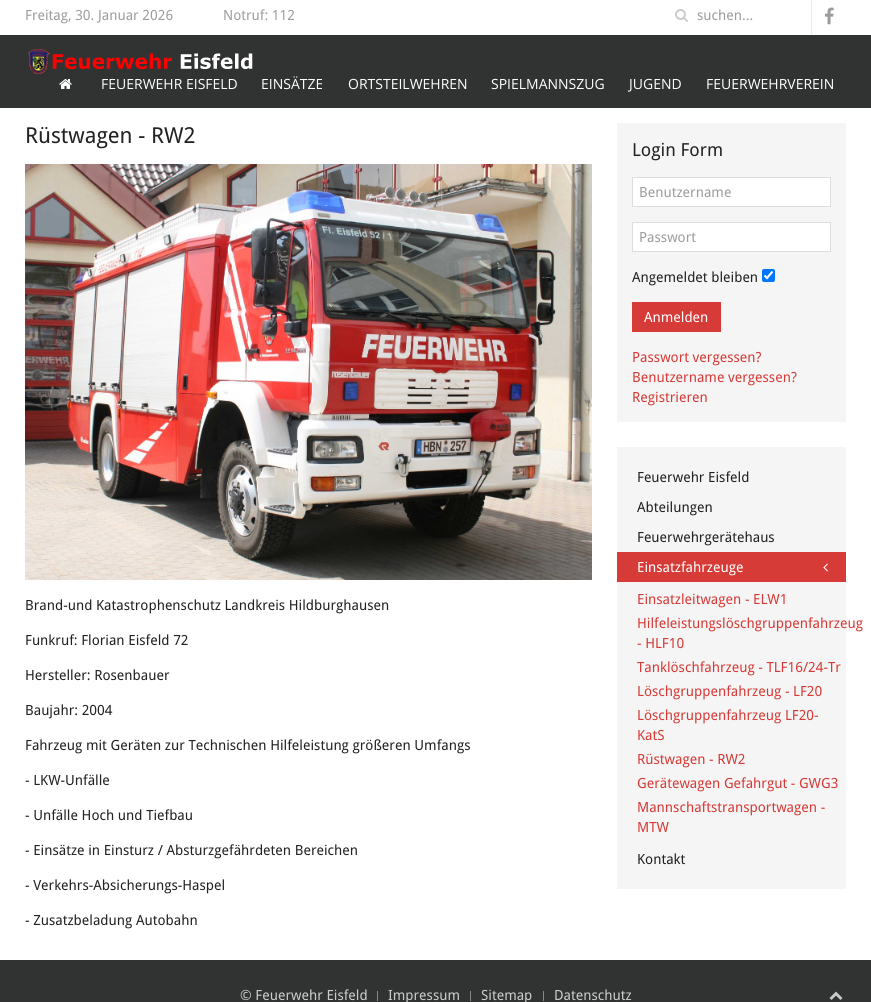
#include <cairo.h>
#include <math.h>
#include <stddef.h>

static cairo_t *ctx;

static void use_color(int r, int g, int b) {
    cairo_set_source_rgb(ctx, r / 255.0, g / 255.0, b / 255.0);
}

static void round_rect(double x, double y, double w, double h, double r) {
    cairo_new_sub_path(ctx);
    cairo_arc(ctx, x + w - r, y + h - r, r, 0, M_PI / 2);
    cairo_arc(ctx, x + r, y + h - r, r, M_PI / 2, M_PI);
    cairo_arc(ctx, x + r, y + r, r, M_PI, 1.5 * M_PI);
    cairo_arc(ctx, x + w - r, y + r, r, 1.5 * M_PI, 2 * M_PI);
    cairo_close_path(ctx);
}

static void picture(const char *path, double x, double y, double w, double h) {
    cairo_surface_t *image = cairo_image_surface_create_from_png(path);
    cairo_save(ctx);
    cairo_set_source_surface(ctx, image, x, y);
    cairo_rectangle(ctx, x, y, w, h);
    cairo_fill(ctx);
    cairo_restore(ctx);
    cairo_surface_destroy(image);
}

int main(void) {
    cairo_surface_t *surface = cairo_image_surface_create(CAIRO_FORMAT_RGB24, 871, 1002);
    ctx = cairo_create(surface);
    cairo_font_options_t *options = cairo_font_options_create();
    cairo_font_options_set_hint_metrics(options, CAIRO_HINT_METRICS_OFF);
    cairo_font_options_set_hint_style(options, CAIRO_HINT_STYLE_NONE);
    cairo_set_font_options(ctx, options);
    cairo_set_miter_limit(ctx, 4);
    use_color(49, 50, 50);
    cairo_paint(ctx);
    use_color(255, 255, 255);
    cairo_rectangle(ctx, 0, 0, 871, 35);
    cairo_fill(ctx);
    cairo_select_font_face(ctx, "Droid Sans", CAIRO_FONT_SLANT_NORMAL, CAIRO_FONT_WEIGHT_NORMAL);
    cairo_set_font_size(ctx, 14);
    use_color(157, 157, 157);
    cairo_move_to(ctx, 25, 20);
    cairo_show_text(ctx, "Freitag, 30. Januar 2026");
    cairo_move_to(ctx, 223, 20);
    cairo_show_text(ctx, "Notruf: 112");
    picture("img1.png", 675, 9, 13, 13);
    cairo_move_to(ctx, 697, 20);
    cairo_show_text(ctx, "suchen...");
    use_color(234, 234, 234);
    cairo_rectangle(ctx, 811, 0, 1, 35);
    cairo_fill(ctx);
    picture("img2.png", 824, 7, 10, 18);
    picture("img3.png", 28, 49, 225, 25);
    picture("img4.png", 59, 79, 13, 10);
    cairo_select_font_face(ctx, "Open Sans", CAIRO_FONT_SLANT_NORMAL, CAIRO_FONT_WEIGHT_NORMAL);
    use_color(255, 255, 255);
    cairo_move_to(ctx, 101, 89);
    cairo_show_text(ctx, "FEUERWEHR EISFELD");
    cairo_move_to(ctx, 261, 89);
    cairo_show_text(ctx, "EINSÄTZE");
    cairo_move_to(ctx, 348, 89);
    cairo_show_text(ctx, "ORTSTEILWEHREN");
    cairo_move_to(ctx, 491, 89);
    cairo_show_text(ctx, "SPIELMANNSZUG");
    cairo_move_to(ctx, 629, 89);
    cairo_show_text(ctx, "JUGEND");
    cairo_move_to(ctx, 706, 89);
    cairo_show_text(ctx, "FEUERWEHRVEREIN");
    cairo_rectangle(ctx, 0, 108, 871, 852);
    cairo_fill(ctx);
    cairo_select_font_face(ctx, "Droid Sans", CAIRO_FONT_SLANT_NORMAL, CAIRO_FONT_WEIGHT_NORMAL);
    cairo_set_font_size(ctx, 22);
    use_color(34, 34, 34);
    cairo_move_to(ctx, 25, 143);
    cairo_show_text(ctx, "Rüstwagen - RW2");
    picture("img5.png", 25, 164, 567, 416);
    cairo_set_font_size(ctx, 14);
    cairo_move_to(ctx, 25, 610);
    cairo_show_text(ctx, "Brand-und Katastrophenschutz Landkreis Hildburghausen");
    cairo_move_to(ctx, 25, 645);
    cairo_show_text(ctx, "Funkruf: Florian Eisfeld 72");
    cairo_move_to(ctx, 25, 680);
    cairo_show_text(ctx, "Hersteller: Rosenbauer");
    cairo_move_to(ctx, 25, 715);
    cairo_show_text(ctx, "Baujahr: 2004");
    cairo_move_to(ctx, 25, 750);
    cairo_show_text(ctx, "Fahrzeug mit Geräten zur Technischen Hilfeleistung größeren Umfangs");
    cairo_move_to(ctx, 25, 785);
    cairo_show_text(ctx, "- LKW-Unfälle");
    cairo_move_to(ctx, 25, 820);
    cairo_show_text(ctx, "- Unfälle Hoch und Tiefbau");
    cairo_move_to(ctx, 25, 855);
    cairo_show_text(ctx, "- Einsätze in Einsturz / Absturzgefährdeten Bereichen");
    cairo_move_to(ctx, 25, 890);
    cairo_show_text(ctx, "- Verkehrs-Absicherungs-Haspel");
    cairo_move_to(ctx, 25, 925);
    cairo_show_text(ctx, "- Zusatzbeladung Autobahn");
    use_color(245, 245, 245);
    cairo_rectangle(ctx, 617, 123, 229, 299);
    cairo_fill(ctx);
    cairo_set_font_size(ctx, 18);
    use_color(34, 34, 34);
    cairo_move_to(ctx, 632, 156);
    cairo_show_text(ctx, "Login Form");
    use_color(255, 255, 255);
    cairo_rectangle(ctx, 632.5, 177.5, 198, 29);
    cairo_fill_preserve(ctx);
    use_color(221, 221, 221);
    cairo_set_line_width(ctx, 1);
    cairo_stroke(ctx);
    cairo_set_font_size(ctx, 14);
    use_color(157, 157, 157);
    cairo_move_to(ctx, 639, 197);
    cairo_show_text(ctx, "Benutzername");
    use_color(255, 255, 255);
    cairo_rectangle(ctx, 632.5, 222.5, 198, 29);
    cairo_fill_preserve(ctx);
    use_color(221, 221, 221);
    cairo_stroke(ctx);
    use_color(157, 157, 157);
    cairo_move_to(ctx, 639, 242);
    cairo_show_text(ctx, "Passwort");
    use_color(34, 34, 34);
    cairo_move_to(ctx, 632, 282);
    cairo_show_text(ctx, "Angemeldet bleiben");
    use_color(0, 117, 255);
    round_rect(762, 269, 13, 13, 2);
    cairo_fill(ctx);
    cairo_new_path(ctx);
    cairo_move_to(ctx, 764.5, 275.5);
    cairo_line_to(ctx, 767, 278);
    cairo_line_to(ctx, 772.5, 271.5);
    use_color(255, 255, 255);
    cairo_set_line_width(ctx, 2.1);
    cairo_stroke(ctx);
    use_color(214, 59, 55);
    cairo_rectangle(ctx, 632, 302, 89, 30);
    cairo_fill(ctx);
    use_color(255, 255, 255);
    cairo_move_to(ctx, 644, 322);
    cairo_show_text(ctx, "Anmelden");
    use_color(214, 59, 55);
    cairo_move_to(ctx, 632, 362);
    cairo_show_text(ctx, "Passwort vergessen?");
    cairo_move_to(ctx, 632, 382);
    cairo_show_text(ctx, "Benutzername vergessen?");
    cairo_move_to(ctx, 632, 402);
    cairo_show_text(ctx, "Registrieren");
    use_color(245, 245, 245);
    cairo_rectangle(ctx, 617, 447, 229, 442);
    cairo_fill(ctx);
    use_color(34, 34, 34);
    cairo_move_to(ctx, 637, 482);
    cairo_show_text(ctx, "Feuerwehr Eisfeld");
    cairo_move_to(ctx, 637, 512);
    cairo_show_text(ctx, "Abteilungen");
    cairo_move_to(ctx, 637, 542);
    cairo_show_text(ctx, "Feuerwehrgerätehaus");
    use_color(214, 59, 55);
    cairo_rectangle(ctx, 617, 552, 229, 30);
    cairo_fill(ctx);
    use_color(255, 255, 255);
    cairo_move_to(ctx, 637, 572);
    cairo_show_text(ctx, "Einsatzfahrzeuge");
    picture("img6.png", 823, 563, 5, 9);
    use_color(214, 59, 55);
    cairo_move_to(ctx, 637, 604);
    cairo_show_text(ctx, "Einsatzleitwagen - ELW1");
    cairo_move_to(ctx, 637, 628);
    cairo_show_text(ctx, "Hilfeleistungslöschgruppenfahrzeug");
    cairo_move_to(ctx, 637, 648);
    cairo_show_text(ctx, "- HLF10");
    cairo_move_to(ctx, 637, 672);
    cairo_show_text(ctx, "Tanklöschfahrzeug - TLF16/24-Tr");
    cairo_move_to(ctx, 637, 696);
    cairo_show_text(ctx, "Löschgruppenfahrzeug - LF20");
    cairo_move_to(ctx, 637, 720);
    cairo_show_text(ctx, "Löschgruppenfahrzeug LF20-");
    cairo_move_to(ctx, 637, 740);
    cairo_show_text(ctx, "KatS");
    cairo_move_to(ctx, 637, 764);
    cairo_show_text(ctx, "Rüstwagen - RW2");
    cairo_move_to(ctx, 637, 788);
    cairo_show_text(ctx, "Gerätewagen Gefahrgut - GWG3");
    cairo_move_to(ctx, 637, 812);
    cairo_show_text(ctx, "Mannschaftstransportwagen -");
    cairo_move_to(ctx, 637, 832);
    cairo_show_text(ctx, "MTW");
    use_color(34, 34, 34);
    cairo_move_to(ctx, 637, 864);
    cairo_show_text(ctx, "Kontakt");
    use_color(204, 204, 204);
    cairo_move_to(ctx, 240, 1000);
    cairo_show_text(ctx, "© Feuerwehr Eisfeld");
    use_color(136, 136, 136);
    cairo_rectangle(ctx, 377, 991, 1, 10);
    cairo_fill(ctx);
    use_color(204, 204, 204);
    cairo_move_to(ctx, 388, 1000);
    cairo_show_text(ctx, "Impressum");
    use_color(136, 136, 136);
    cairo_rectangle(ctx, 470, 991, 1, 10);
    cairo_fill(ctx);
    use_color(204, 204, 204);
    cairo_move_to(ctx, 481, 1000);
    cairo_show_text(ctx, "Sitemap");
    use_color(136, 136, 136);
    cairo_rectangle(ctx, 543, 991, 1, 10);
    cairo_fill(ctx);
    use_color(204, 204, 204);
    cairo_move_to(ctx, 554, 1000);
    cairo_show_text(ctx, "Datenschutz");
    picture("img7.png", 829, 991, 14, 9);
    cairo_surface_write_to_png(surface, "result.png");
    cairo_font_options_destroy(options);
    cairo_destroy(ctx);
    cairo_surface_destroy(surface);
    return 0;
}
